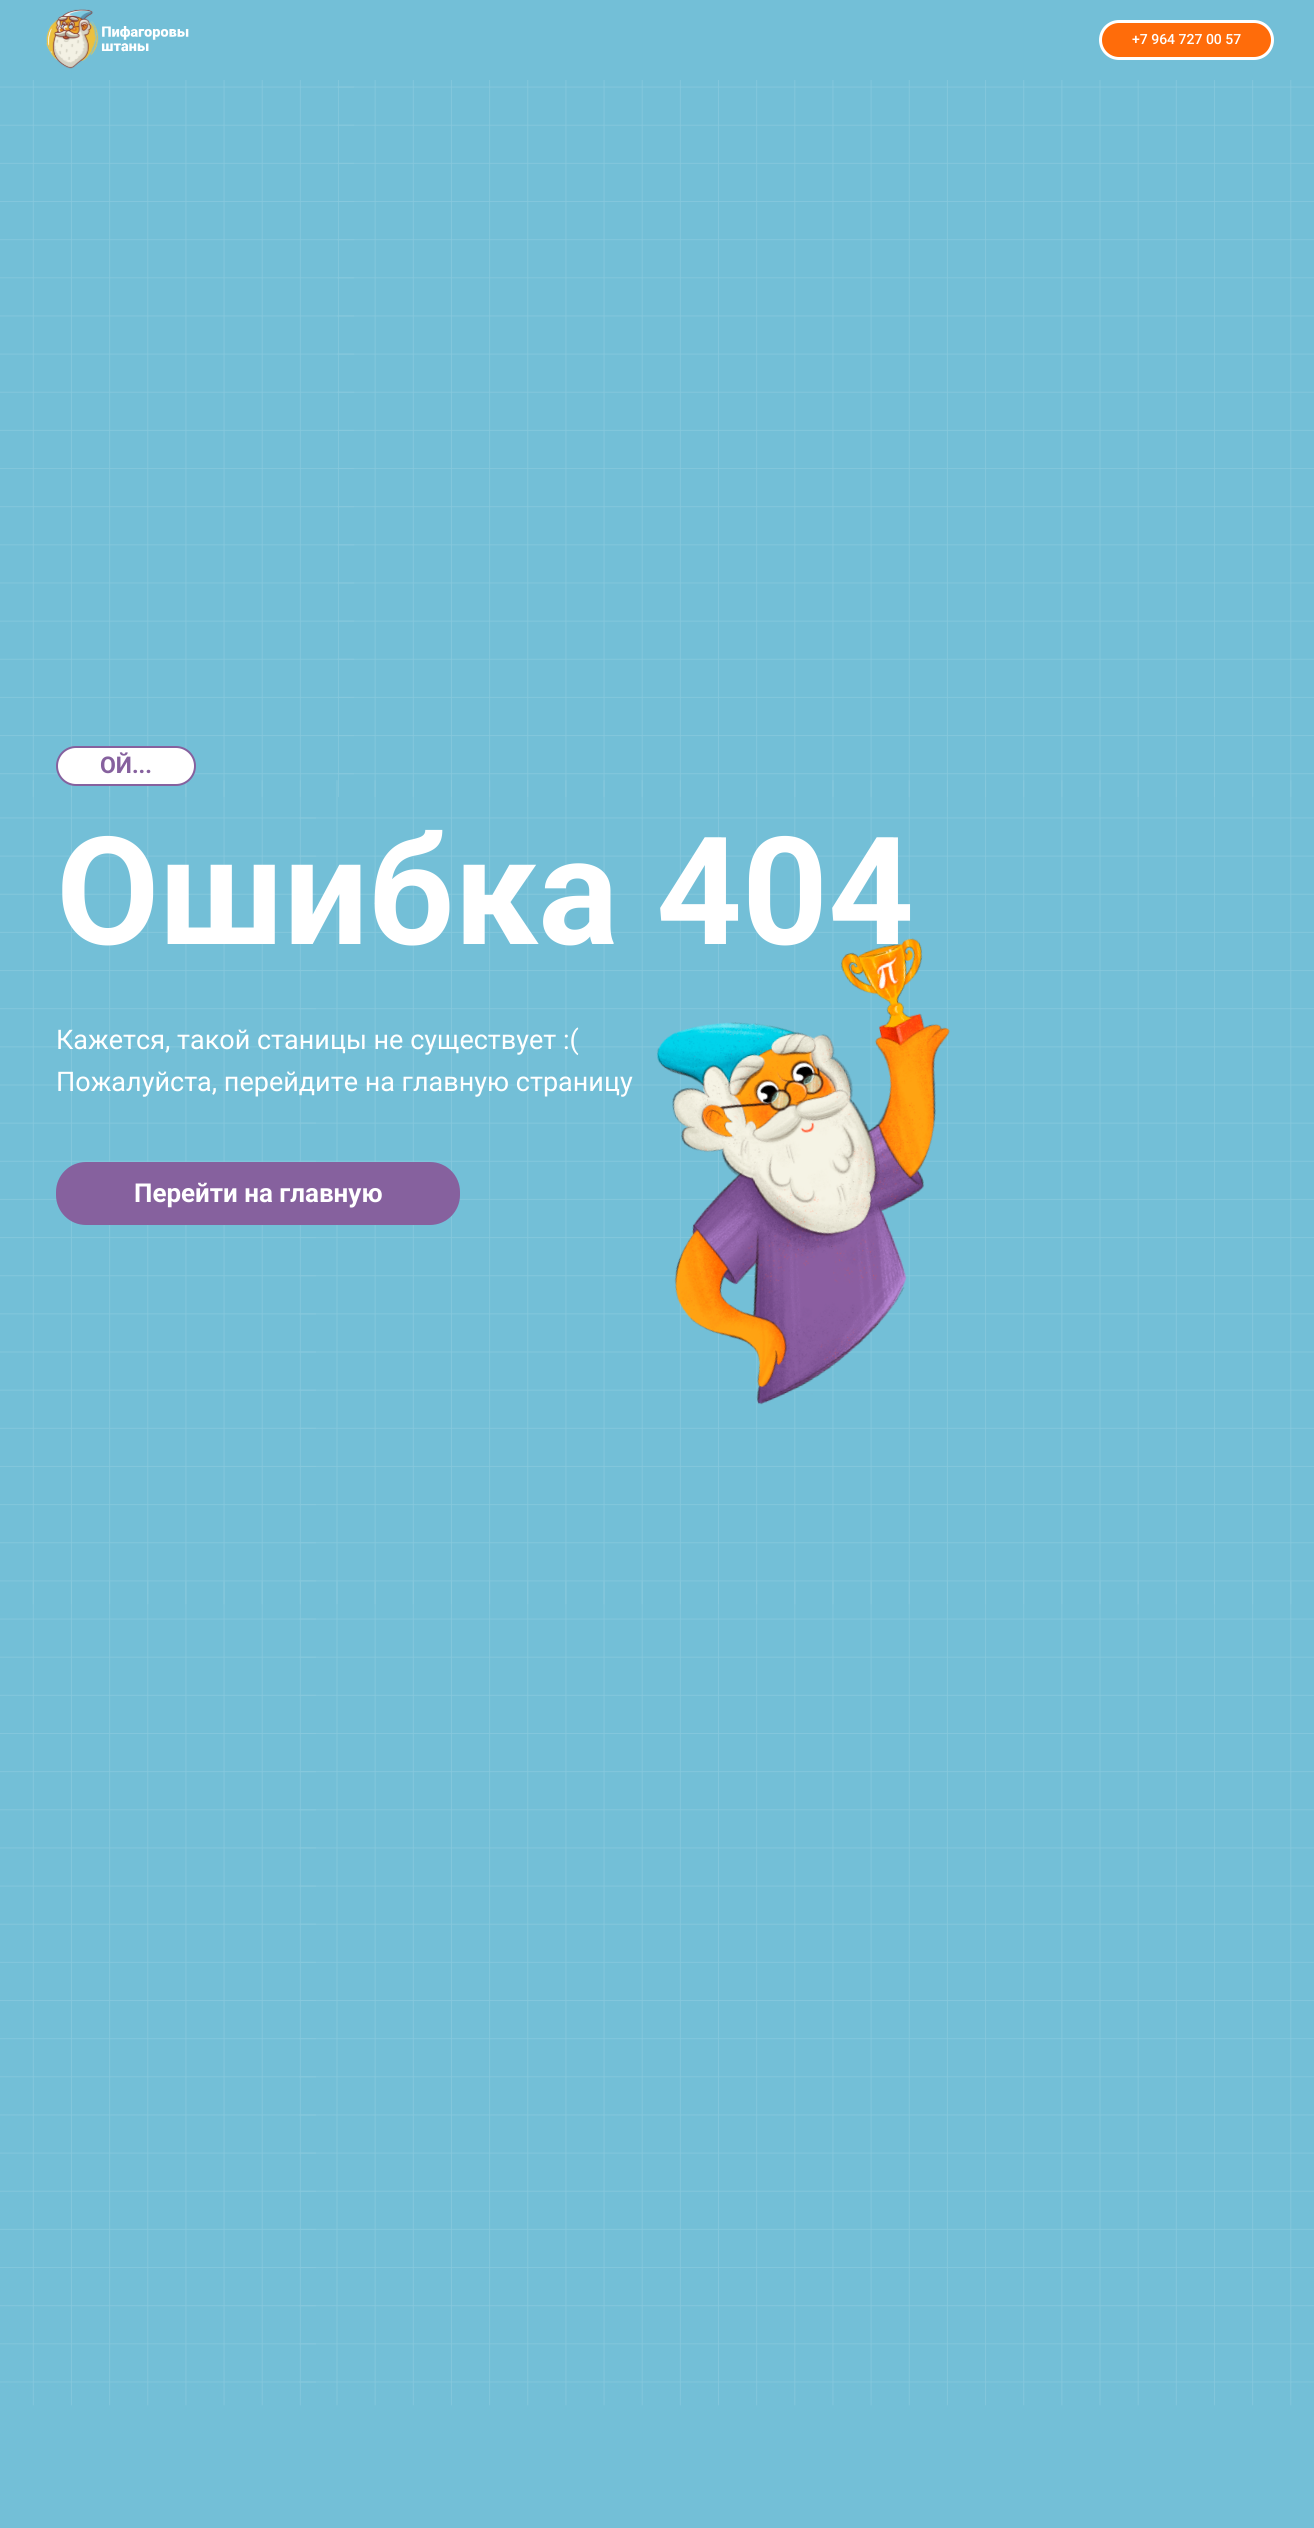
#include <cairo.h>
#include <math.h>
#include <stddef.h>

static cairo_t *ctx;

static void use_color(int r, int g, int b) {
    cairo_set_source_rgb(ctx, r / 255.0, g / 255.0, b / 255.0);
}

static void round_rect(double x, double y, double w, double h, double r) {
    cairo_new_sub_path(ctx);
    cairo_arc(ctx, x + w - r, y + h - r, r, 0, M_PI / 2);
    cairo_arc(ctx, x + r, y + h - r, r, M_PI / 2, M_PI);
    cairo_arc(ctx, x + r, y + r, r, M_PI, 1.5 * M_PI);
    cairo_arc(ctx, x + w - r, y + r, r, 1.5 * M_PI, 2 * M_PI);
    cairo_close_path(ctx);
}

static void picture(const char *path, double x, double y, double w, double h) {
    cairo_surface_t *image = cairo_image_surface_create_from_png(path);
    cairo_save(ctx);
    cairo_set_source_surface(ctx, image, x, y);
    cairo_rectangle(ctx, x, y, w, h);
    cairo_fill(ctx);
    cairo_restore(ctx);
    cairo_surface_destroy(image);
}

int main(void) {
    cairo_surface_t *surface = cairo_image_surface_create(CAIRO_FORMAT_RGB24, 1314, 2528);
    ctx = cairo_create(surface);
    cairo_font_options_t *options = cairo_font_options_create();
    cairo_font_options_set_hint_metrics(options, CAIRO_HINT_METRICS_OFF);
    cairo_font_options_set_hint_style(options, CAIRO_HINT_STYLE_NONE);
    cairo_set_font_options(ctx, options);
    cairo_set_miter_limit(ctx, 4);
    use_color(115, 191, 215);
    cairo_paint(ctx);
    picture("img1.png", 46, 9, 143, 60);
    use_color(255, 108, 10);
    round_rect(1100.5, 21.5, 172, 37, 18.5);
    cairo_fill_preserve(ctx);
    use_color(255, 255, 255);
    cairo_set_line_width(ctx, 3);
    cairo_stroke(ctx);
    cairo_select_font_face(ctx, "Roboto Medium", CAIRO_FONT_SLANT_NORMAL, CAIRO_FONT_WEIGHT_NORMAL);
    cairo_set_font_size(ctx, 14);
    cairo_move_to(ctx, 1132, 44);
    cairo_show_text(ctx, "+7 964 727 00 57");
    picture("img2.png", 0, 80, 1314, 2326);
    round_rect(57, 747, 138, 38, 19);
    cairo_fill_preserve(ctx);
    use_color(134, 97, 158);
    cairo_set_line_width(ctx, 2);
    cairo_stroke(ctx);
    cairo_select_font_face(ctx, "Roboto", CAIRO_FONT_SLANT_NORMAL, CAIRO_FONT_WEIGHT_BOLD);
    cairo_set_font_size(ctx, 23);
    cairo_move_to(ctx, 100, 773);
    cairo_show_text(ctx, "ОЙ...");
    cairo_set_font_size(ctx, 150);
    use_color(255, 255, 255);
    cairo_move_to(ctx, 56, 944);
    cairo_show_text(ctx, "Ошибка 404");
    cairo_select_font_face(ctx, "Roboto", CAIRO_FONT_SLANT_NORMAL, CAIRO_FONT_WEIGHT_NORMAL);
    cairo_set_font_size(ctx, 27);
    cairo_move_to(ctx, 56, 1049);
    cairo_show_text(ctx, "Кажется, такой станицы не существует :(");
    cairo_move_to(ctx, 56, 1091);
    cairo_show_text(ctx, "Пожалуйста, перейдите на главную страницу");
    picture("img3.png", 656, 938, 294, 467);
    use_color(134, 97, 158);
    round_rect(56, 1162, 404, 63, 30);
    cairo_fill(ctx);
    cairo_select_font_face(ctx, "Roboto", CAIRO_FONT_SLANT_NORMAL, CAIRO_FONT_WEIGHT_BOLD);
    cairo_set_font_size(ctx, 26);
    use_color(255, 255, 255);
    cairo_move_to(ctx, 134, 1202);
    cairo_show_text(ctx, "Перейти на главную");
    cairo_surface_write_to_png(surface, "result.png");
    cairo_font_options_destroy(options);
    cairo_destroy(ctx);
    cairo_surface_destroy(surface);
    return 0;
}
